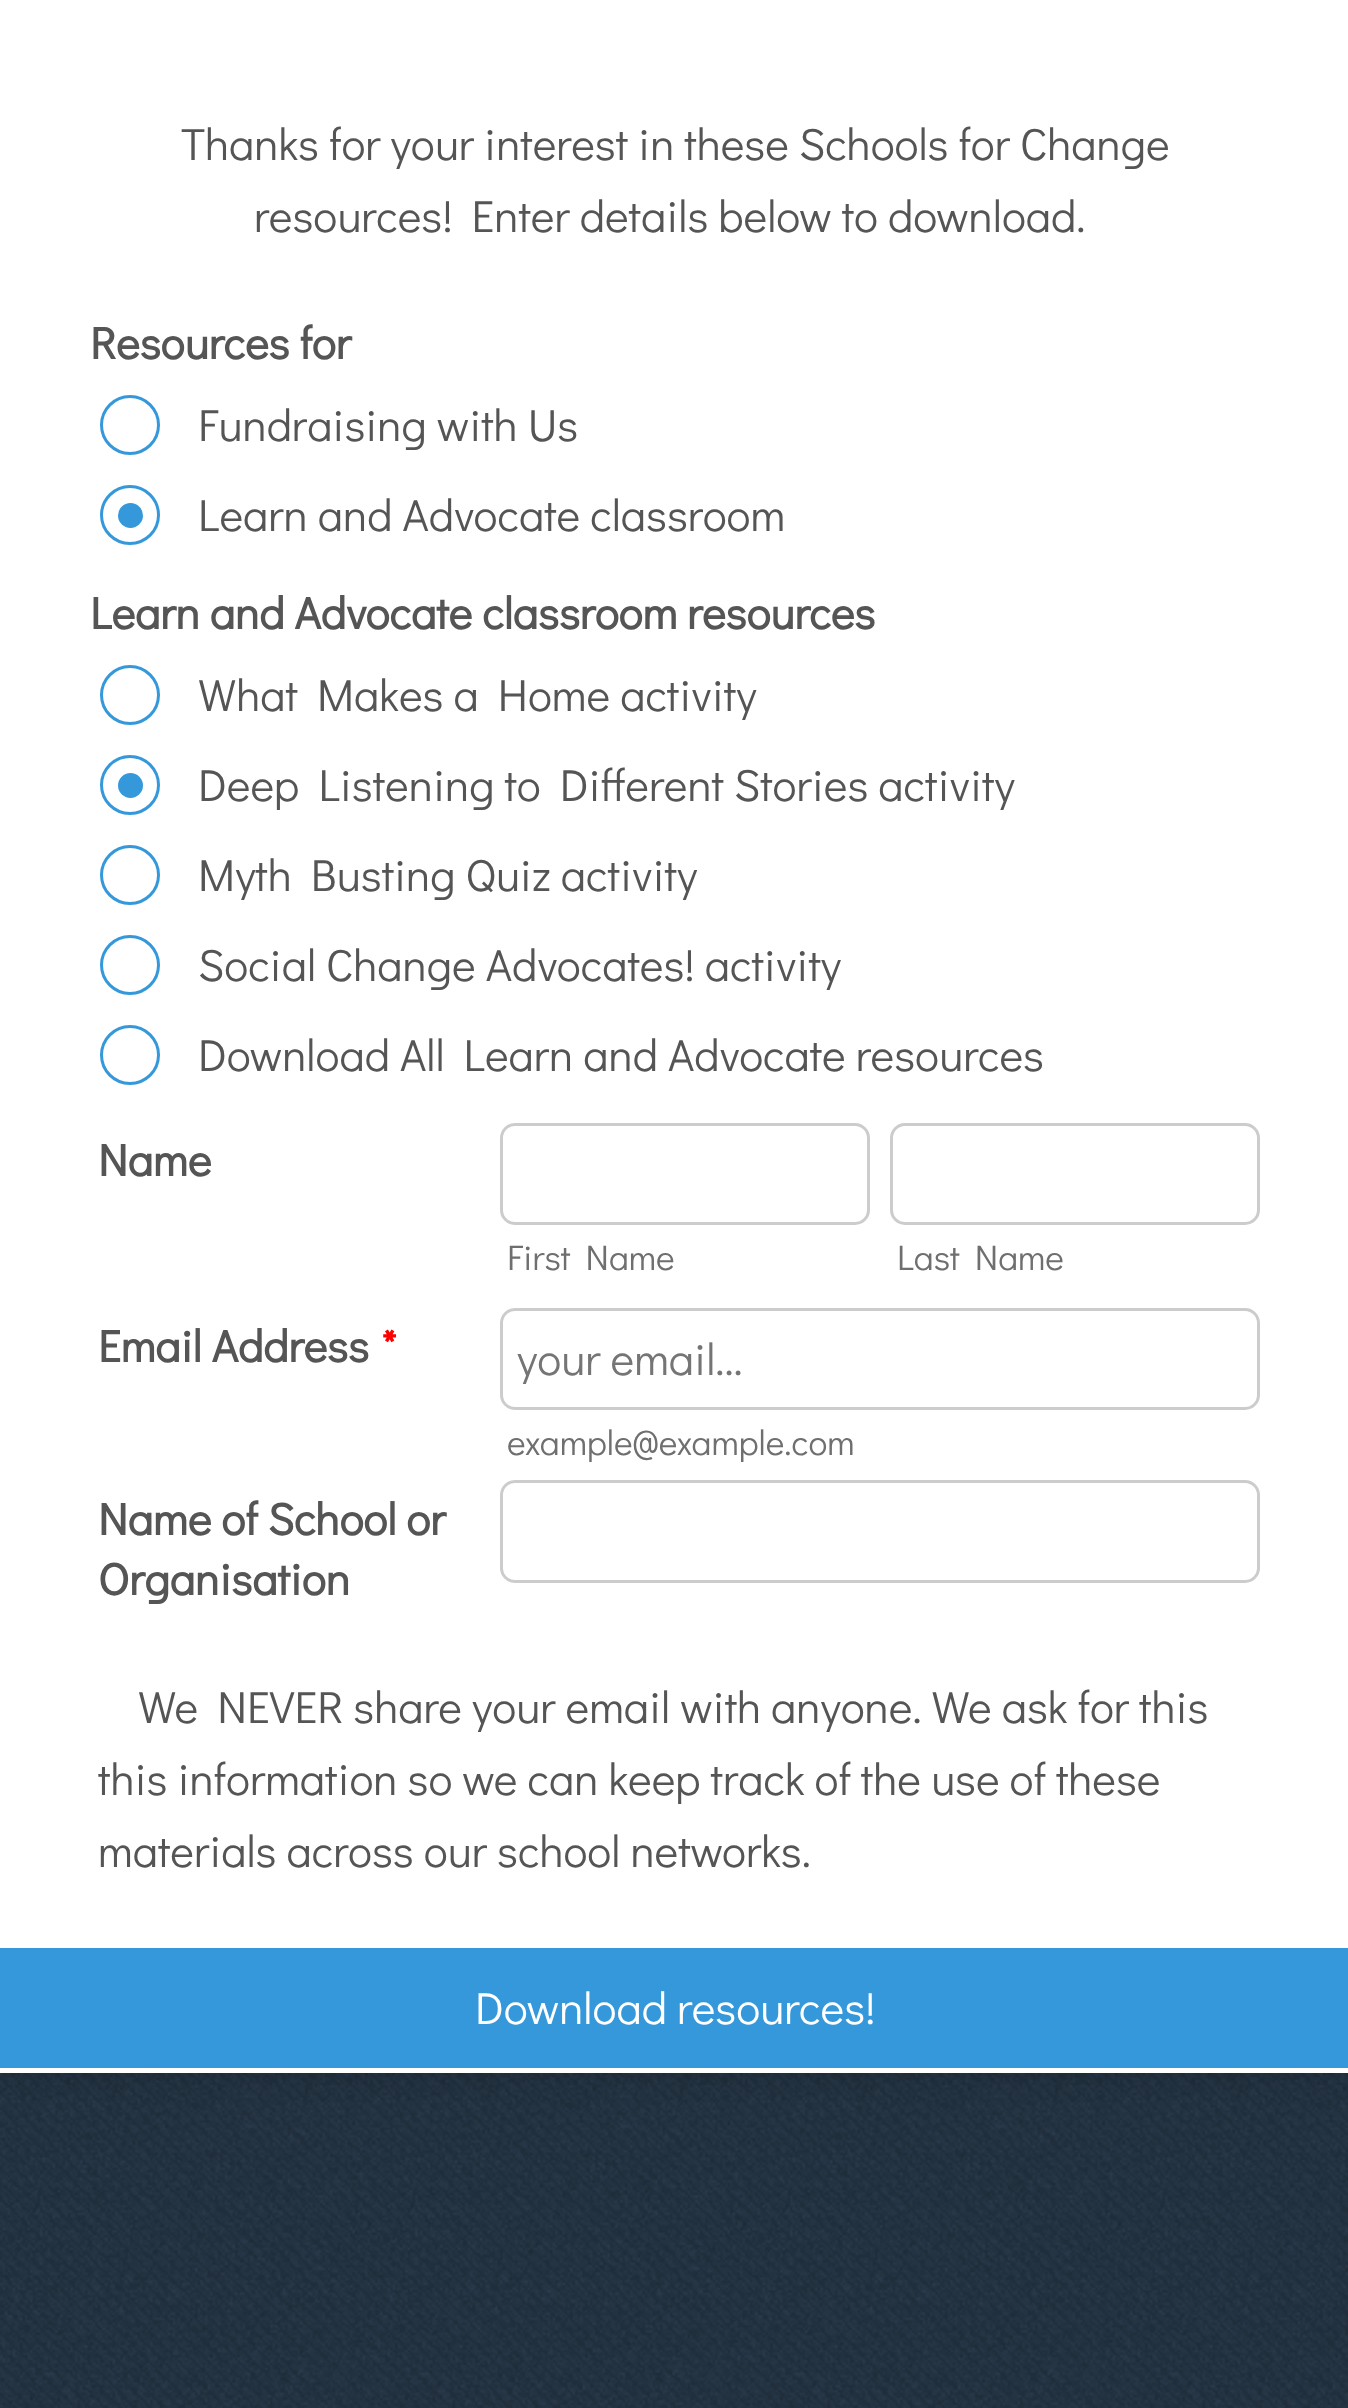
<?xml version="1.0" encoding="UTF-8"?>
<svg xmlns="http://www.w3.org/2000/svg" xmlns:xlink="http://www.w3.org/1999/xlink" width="1348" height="2408">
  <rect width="100%" height="100%" fill="#ffffff" />
  <image x="0" y="2073" width="1348" height="335" xlink:href="image1.png" />
  <rect y="8" width="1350" height="2072" fill="#000000" fill-opacity="0.1" filter="blur(11px)" />
  <rect width="1348" height="2073" fill="#ffffff" />
  <circle cx="130" cy="425" r="28.5" fill="none" stroke="#3498db" stroke-width="3" />
  <circle cx="130" cy="515" r="28.5" fill="none" stroke="#3498db" stroke-width="3" />
  <circle cx="130.5" cy="515.5" r="12.5" fill="#3498db" />
  <circle cx="130" cy="695" r="28.5" fill="none" stroke="#3498db" stroke-width="3" />
  <circle cx="130" cy="785" r="28.5" fill="none" stroke="#3498db" stroke-width="3" />
  <circle cx="130.5" cy="785.5" r="12.5" fill="#3498db" />
  <circle cx="130" cy="875" r="28.5" fill="none" stroke="#3498db" stroke-width="3" />
  <circle cx="130" cy="965" r="28.5" fill="none" stroke="#3498db" stroke-width="3" />
  <circle cx="130" cy="1055" r="28.5" fill="none" stroke="#3498db" stroke-width="3" />
  <rect x="501.5" y="1124.5" width="367" height="99" rx="13.5" fill="none" stroke="#cccccc" stroke-width="3" />
  <rect x="891.5" y="1124.5" width="367" height="99" rx="13.5" fill="none" stroke="#cccccc" stroke-width="3" />
  <rect x="501.5" y="1309.5" width="757" height="99" rx="13.5" fill="none" stroke="#cccccc" stroke-width="3" />
  <rect x="501.5" y="1481.5" width="757" height="100" rx="13.5" fill="none" stroke="#cccccc" stroke-width="3" />
  <rect y="1948" width="1348" height="120" fill="#3498db" />
  <text x="181" y="160" style="font-family: Didact Gothic; font-size: 45px; fill: #555555">Thanks for your interest in these Schools for Change</text>
  <text x="254" y="232" style="font-family: Didact Gothic; font-size: 45px; fill: #555555">resources! Enter details below to download.</text>
  <text x="90" y="359" style="font-family: Didact Gothic; font-size: 45px; font-weight: bold; fill: #555555">Resources for</text>
  <text x="198" y="441" style="font-family: Didact Gothic; font-size: 45px; fill: #555555">Fundraising with Us</text>
  <text x="198" y="531" style="font-family: Didact Gothic; font-size: 45px; fill: #555555">Learn and Advocate classroom</text>
  <text x="90" y="629" style="font-family: Didact Gothic; font-size: 45px; font-weight: bold; fill: #555555">Learn and Advocate classroom resources</text>
  <text x="198" y="711" style="font-family: Didact Gothic; font-size: 45px; fill: #555555">What Makes a Home activity</text>
  <text x="198" y="801" style="font-family: Didact Gothic; font-size: 45px; fill: #555555">Deep Listening to Different Stories activity</text>
  <text x="198" y="891" style="font-family: Didact Gothic; font-size: 45px; fill: #555555">Myth Busting Quiz activity</text>
  <text x="198" y="981" style="font-family: Didact Gothic; font-size: 45px; fill: #555555">Social Change Advocates! activity</text>
  <text x="198" y="1071" style="font-family: Didact Gothic; font-size: 45px; fill: #555555">Download All Learn and Advocate resources</text>
  <text x="98" y="1176" style="font-family: Didact Gothic; font-size: 45px; font-weight: bold; fill: #555555">Name</text>
  <text x="507" y="1270" style="font-family: Didact Gothic; font-size: 35.4px; fill: #6f6f6f">First Name</text>
  <text x="897" y="1270" style="font-family: Didact Gothic; font-size: 35.4px; fill: #6f6f6f">Last Name</text>
  <text x="98" y="1362" style="font-family: Didact Gothic; font-size: 45px; font-weight: bold; fill: #555555">Email Address</text>
  <text x="381" y="1362" style="font-family: Didact Gothic; font-size: 45px; font-weight: bold; fill: #ff0000">*</text>
  <text x="517" y="1375" style="font-family: Didact Gothic; font-size: 45px; fill: #757575">your email...</text>
  <text x="507" y="1455" style="font-family: Didact Gothic; font-size: 35.4px; fill: #6f6f6f">example@example.com</text>
  <text x="98" y="1535" style="font-family: Didact Gothic; font-size: 45px; font-weight: bold; fill: #555555">Name of School or</text>
  <text x="98" y="1595" style="font-family: Didact Gothic; font-size: 45px; font-weight: bold; fill: #555555">Organisation</text>
  <text x="138" y="1723" style="font-family: Didact Gothic; font-size: 45px; fill: #555555">We NEVER share your email with anyone. We ask for this</text>
  <text x="98" y="1795" style="font-family: Didact Gothic; font-size: 45px; fill: #555555">this information so we can keep track of the use of these</text>
  <text x="98" y="1867" style="font-family: Didact Gothic; font-size: 45px; fill: #555555">materials across our school networks.</text>
  <text x="475" y="2024" style="font-family: Didact Gothic; font-size: 45px; fill: #ffffff">Download resources!</text>
</svg>
